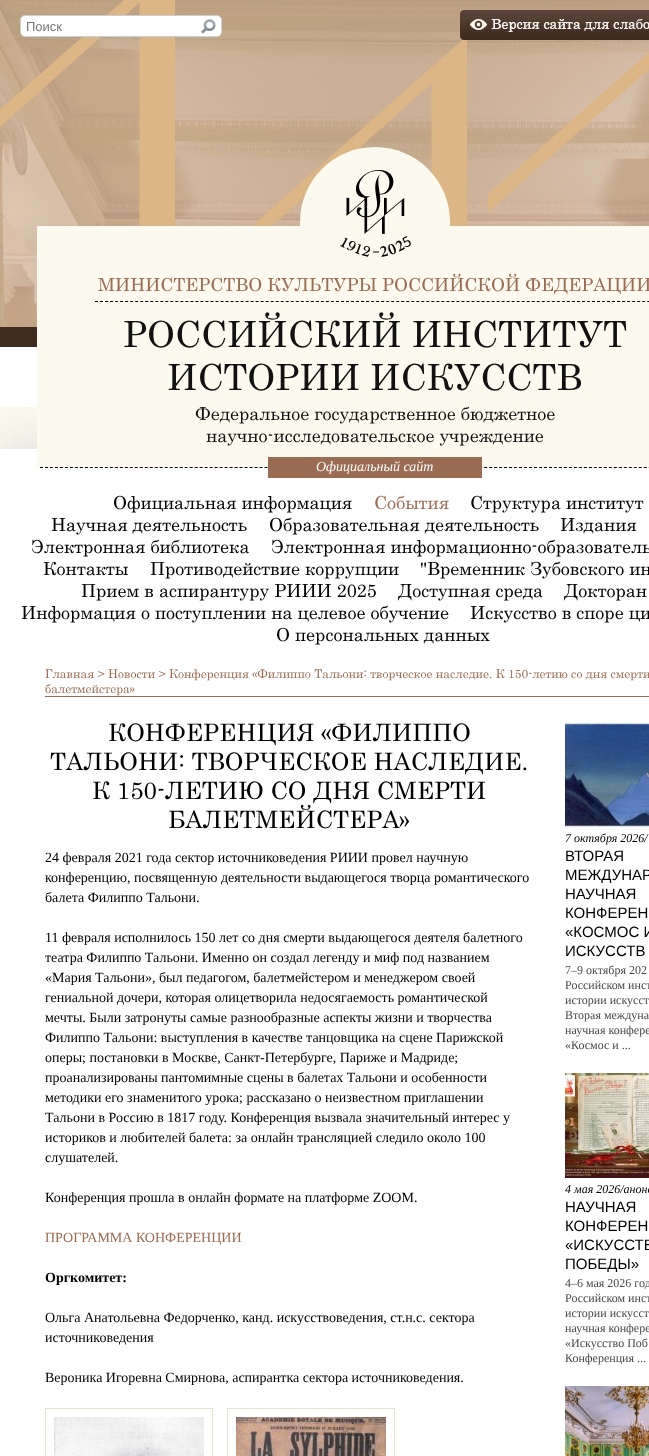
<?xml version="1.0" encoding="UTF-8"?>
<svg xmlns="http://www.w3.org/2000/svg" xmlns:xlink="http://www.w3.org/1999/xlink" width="649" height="1456">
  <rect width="100%" height="100%" fill="#fcf9ee" />
  <image x="0" y="0" width="649" height="327" xlink:href="image1.png" />
  <rect y="327" width="37" height="20" fill="#402b20" />
  <rect y="449" width="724" height="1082" fill="#d6d6d6" filter="blur(25px)" />
  <rect y="347" width="37" height="60" fill="#ffffff" />
  <rect x="20.5" y="15.5" width="201" height="21" rx="4.5" fill="#ffffff" stroke="#cad0d4" />
  <image x="201" y="19" width="15" height="15" xlink:href="image2.png" />
  <image x="460" y="10" width="189" height="30" xlink:href="image3.png" />
  <rect y="449" width="649" height="1007" fill="#ffffff" />
  <rect x="37" y="226" width="612" height="242" fill="#fcf9ee" />
  <path d="M 375 147 c 41.5 0 75 33.5 75 75 v 48 h -150 v -48 c 0 -41.5 33.5 -75 75 -75 z" fill="#fcf9ee" />
  <image x="340" y="170" width="71" height="87" xlink:href="image4.png" />
  <path d="M 95 301.5 h 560" fill="none" stroke="#000000" stroke-dasharray="3 2.02" />
  <path d="M 40 467.5 h 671" fill="none" stroke="#000000" stroke-dasharray="3 1.99" />
  <rect x="268" y="457" width="214" height="21" fill="#9a6c53" />
  <rect x="45" y="696" width="604" height="1" fill="#9a6c53" />
  <rect x="45.5" y="1408.5" width="167" height="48" fill="none" stroke="#e9e1d1" />
  <image x="54" y="1417" width="150" height="39" xlink:href="image5.png" />
  <rect x="227.5" y="1408.5" width="167" height="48" fill="none" stroke="#e9e1d1" />
  <image x="236" y="1417" width="150" height="39" xlink:href="image6.png" />
  <image x="565" y="723" width="84" height="104" xlink:href="image7.png" />
  <image x="565" y="1073" width="84" height="105" xlink:href="image8.png" />
  <image x="565" y="1386" width="84" height="70" xlink:href="image9.png" />
  <text x="26" y="31" style="font-family: Liberation Sans; font-size: 13px; fill: #757575">Поиск</text>
  <text x="98" y="291" style="font-family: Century; font-size: 18px; fill: #9a6c53">МИНИСТЕРСТВО КУЛЬТУРЫ РОССИЙСКОЙ ФЕДЕРАЦИИ</text>
  <text x="123" y="347" style="font-family: Century; font-size: 36px; fill: #111111">РОССИЙСКИЙ ИНСТИТУТ</text>
  <text x="167" y="390" style="font-family: Century; font-size: 36px; fill: #111111">ИСТОРИИ ИСКУССТВ</text>
  <text x="195" y="420" style="font-family: Century; font-size: 18px; fill: #111111">Федеральное государственное бюджетное</text>
  <text x="206" y="442" style="font-family: Century; font-size: 18px; fill: #111111">научно-исследовательское учреждение</text>
  <text x="316" y="471" style="font-family: Liberation Serif; font-size: 14px; font-style: italic; fill: #ffffff">Официальный сайт</text>
  <text x="113" y="509" style="font-family: Century; font-size: 18px; fill: #000000">Официальная информация</text>
  <text x="374" y="509" style="font-family: Century; font-size: 18px; fill: #9a6c53">События</text>
  <text x="470" y="509" style="font-family: Century; font-size: 18px; fill: #000000">Структура институт</text>
  <text x="51" y="531" style="font-family: Century; font-size: 18px; fill: #000000">Научная деятельность</text>
  <text x="269" y="531" style="font-family: Century; font-size: 18px; fill: #000000">Образовательная деятельность</text>
  <text x="560" y="531" style="font-family: Century; font-size: 18px; fill: #000000">Издания</text>
  <text x="31" y="553" style="font-family: Century; font-size: 18px; fill: #000000">Электронная библиотека</text>
  <text x="271" y="553" style="font-family: Century; font-size: 18px; fill: #000000">Электронная информационно-образователь</text>
  <text x="43" y="575" style="font-family: Century; font-size: 18px; fill: #000000">Контакты</text>
  <text x="150" y="575" style="font-family: Century; font-size: 18px; fill: #000000">Противодействие коррупции</text>
  <text x="420" y="575" style="font-family: Century; font-size: 18px; fill: #000000">"Временник Зубовского ин</text>
  <text x="81" y="597" style="font-family: Century; font-size: 18px; fill: #000000">Прием в аспирантуру РИИИ 2025</text>
  <text x="398" y="597" style="font-family: Century; font-size: 18px; fill: #000000">Доступная среда</text>
  <text x="564" y="597" style="font-family: Century; font-size: 18px; fill: #000000">Докторан</text>
  <text x="21" y="619" style="font-family: Century; font-size: 18px; fill: #000000">Информация о поступлении на целевое обучение</text>
  <text x="470" y="619" style="font-family: Century; font-size: 18px; fill: #000000">Искусство в споре ци</text>
  <text x="276" y="641" style="font-family: Century; font-size: 18px; fill: #000000">О персональных данных</text>
  <text x="45" y="678" style="font-family: Century; font-size: 12px; fill: #9a6c53">Главная &gt; Новости &gt; Конференция «Филиппо Тальони: творческое наследие. К 150-летию со дня смерти</text>
  <text x="45" y="693" style="font-family: Century; font-size: 12px; fill: #9a6c53">балетмейстера»</text>
  <text x="108" y="741" style="font-family: Century; font-size: 24px; fill: #000000">КОНФЕРЕНЦИЯ «ФИЛИППО</text>
  <text x="50" y="770" style="font-family: Century; font-size: 24px; fill: #000000">ТАЛЬОНИ: ТВОРЧЕСКОЕ НАСЛЕДИЕ.</text>
  <text x="92" y="799" style="font-family: Century; font-size: 24px; fill: #000000">К 150-ЛЕТИЮ СО ДНЯ СМЕРТИ</text>
  <text x="168" y="828" style="font-family: Century; font-size: 24px; fill: #000000">БАЛЕТМЕЙСТЕРА»</text>
  <text x="45" y="862" style="font-family: Liberation Serif; font-size: 14px; fill: #000000">24 февраля 2021 года сектор источниковедения РИИИ провел научную</text>
  <text x="45" y="882" style="font-family: Liberation Serif; font-size: 14px; fill: #000000">конференцию, посвященную деятельности выдающегося творца романтического</text>
  <text x="45" y="902" style="font-family: Liberation Serif; font-size: 14px; fill: #000000">балета Филиппо Тальони.</text>
  <text x="45" y="942" style="font-family: Liberation Serif; font-size: 14px; fill: #000000">11 февраля исполнилось 150 лет со дня смерти выдающегося деятеля балетного</text>
  <text x="45" y="962" style="font-family: Liberation Serif; font-size: 14px; fill: #000000">театра Филиппо Тальони. Именно он создал легенду и миф под названием</text>
  <text x="45" y="982" style="font-family: Liberation Serif; font-size: 14px; fill: #000000">«Мария Тальони», был педагогом, балетмейстером и менеджером своей</text>
  <text x="45" y="1002" style="font-family: Liberation Serif; font-size: 14px; fill: #000000">гениальной дочери, которая олицетворила недосягаемость романтической</text>
  <text x="45" y="1022" style="font-family: Liberation Serif; font-size: 14px; fill: #000000">мечты. Были затронуты самые разнообразные аспекты жизни и творчества</text>
  <text x="45" y="1042" style="font-family: Liberation Serif; font-size: 14px; fill: #000000">Филиппо Тальони: выступления в качестве танцовщика на сцене Парижской</text>
  <text x="45" y="1062" style="font-family: Liberation Serif; font-size: 14px; fill: #000000">оперы; постановки в Москве, Санкт-Петербурге, Париже и Мадриде;</text>
  <text x="45" y="1082" style="font-family: Liberation Serif; font-size: 14px; fill: #000000">проанализированы пантомимные сцены в балетах Тальони и особенности</text>
  <text x="45" y="1102" style="font-family: Liberation Serif; font-size: 14px; fill: #000000">методики его знаменитого урока; рассказано о неизвестном приглашении</text>
  <text x="45" y="1122" style="font-family: Liberation Serif; font-size: 14px; fill: #000000">Тальони в Россию в 1817 году. Конференция вызвала значительный интерес у</text>
  <text x="45" y="1142" style="font-family: Liberation Serif; font-size: 14px; fill: #000000">историков и любителей балета: за онлайн трансляцией следило около 100</text>
  <text x="45" y="1162" style="font-family: Liberation Serif; font-size: 14px; fill: #000000">слушателей.</text>
  <text x="45" y="1202" style="font-family: Liberation Serif; font-size: 14px; fill: #000000">Конференция прошла в онлайн формате на платформе ZOOM.</text>
  <text x="45" y="1242" style="font-family: Liberation Serif; font-size: 14px; fill: #9a6c53">ПРОГРАММА КОНФЕРЕНЦИИ</text>
  <text x="45" y="1282" style="font-family: Liberation Serif; font-size: 14px; font-weight: bold; fill: #000000">Оргкомитет:</text>
  <text x="45" y="1322" style="font-family: Liberation Serif; font-size: 14px; fill: #000000">Ольга Анатольевна Федорченко, канд. искусствоведения, ст.н.с. сектора</text>
  <text x="45" y="1342" style="font-family: Liberation Serif; font-size: 14px; fill: #000000">источниковедения</text>
  <text x="45" y="1382" style="font-family: Liberation Serif; font-size: 14px; fill: #000000">Вероника Игоревна Смирнова, аспирантка сектора источниковедения.</text>
  <text x="565" y="842" style="font-family: Liberation Serif; font-size: 12px; font-style: italic; fill: #000000">7 октября 2026/</text>
  <text x="565" y="861" style="font-family: Liberation Sans; font-size: 15px; fill: #000000">ВТОРАЯ</text>
  <text x="565" y="880" style="font-family: Liberation Sans; font-size: 15px; fill: #000000">МЕЖДУНАР</text>
  <text x="565" y="899" style="font-family: Liberation Sans; font-size: 15px; fill: #000000">НАУЧНАЯ</text>
  <text x="565" y="918" style="font-family: Liberation Sans; font-size: 15px; fill: #000000">КОНФЕРЕН</text>
  <text x="565" y="937" style="font-family: Liberation Sans; font-size: 15px; fill: #000000">«КОСМОС И</text>
  <text x="565" y="956" style="font-family: Liberation Sans; font-size: 15px; fill: #000000">ИСКУССТВ</text>
  <text x="565" y="974" style="font-family: Liberation Serif; font-size: 12px; fill: #494949">7–9 октября 202</text>
  <text x="565" y="989" style="font-family: Liberation Serif; font-size: 12px; fill: #494949">Российском инст</text>
  <text x="565" y="1004" style="font-family: Liberation Serif; font-size: 12px; fill: #494949">истории искусст</text>
  <text x="565" y="1019" style="font-family: Liberation Serif; font-size: 12px; fill: #494949">Вторая междуна</text>
  <text x="565" y="1034" style="font-family: Liberation Serif; font-size: 12px; fill: #494949">научная конфере</text>
  <text x="565" y="1049" style="font-family: Liberation Serif; font-size: 12px; fill: #494949">«Космос и ...</text>
  <text x="565" y="1193" style="font-family: Liberation Serif; font-size: 12px; font-style: italic; fill: #000000">4 мая 2026/анонс</text>
  <text x="565" y="1212" style="font-family: Liberation Sans; font-size: 15px; fill: #000000">НАУЧНАЯ</text>
  <text x="565" y="1231" style="font-family: Liberation Sans; font-size: 15px; fill: #000000">КОНФЕРЕН</text>
  <text x="565" y="1250" style="font-family: Liberation Sans; font-size: 15px; fill: #000000">«ИСКУССТВ</text>
  <text x="565" y="1269" style="font-family: Liberation Sans; font-size: 15px; fill: #000000">ПОБЕДЫ»</text>
  <text x="565" y="1287" style="font-family: Liberation Serif; font-size: 12px; fill: #494949">4–6 мая 2026 год</text>
  <text x="565" y="1302" style="font-family: Liberation Serif; font-size: 12px; fill: #494949">Российском инст</text>
  <text x="565" y="1317" style="font-family: Liberation Serif; font-size: 12px; fill: #494949">истории искусст</text>
  <text x="565" y="1332" style="font-family: Liberation Serif; font-size: 12px; fill: #494949">научная конфере</text>
  <text x="565" y="1347" style="font-family: Liberation Serif; font-size: 12px; fill: #494949">«Искусство Поб</text>
  <text x="565" y="1362" style="font-family: Liberation Serif; font-size: 12px; fill: #494949">Конференция ...</text>
</svg>
